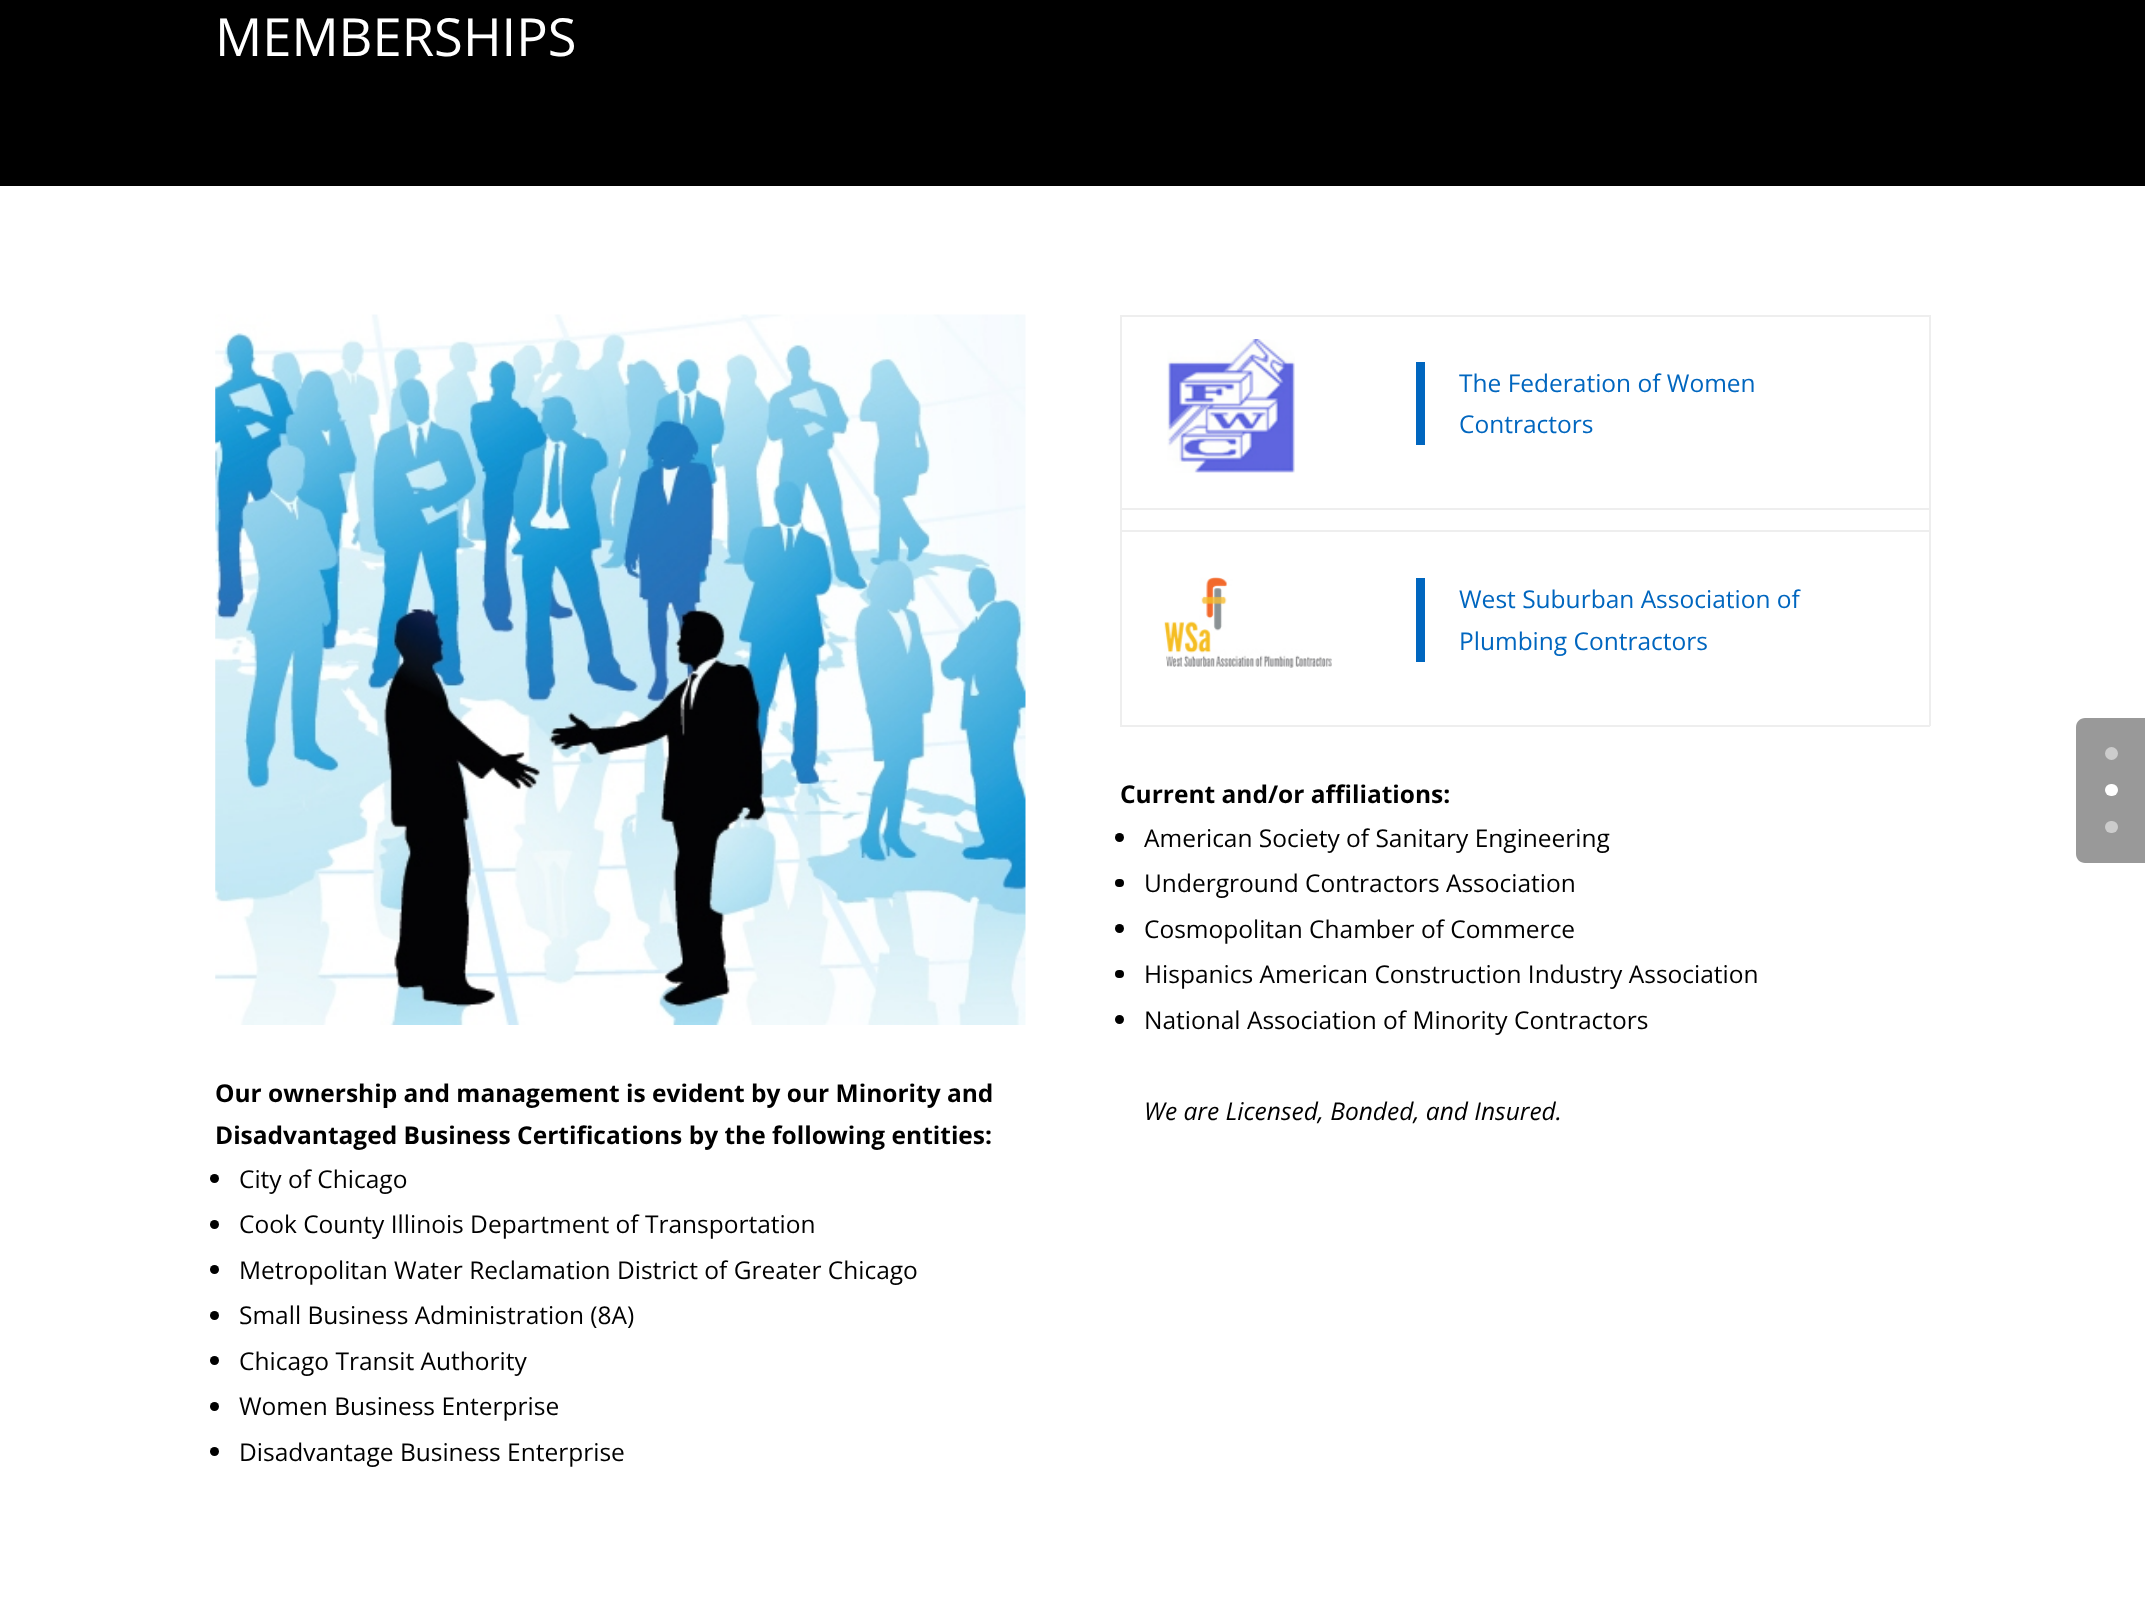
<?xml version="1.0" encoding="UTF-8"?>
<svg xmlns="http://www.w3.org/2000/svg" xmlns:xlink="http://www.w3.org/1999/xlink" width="2145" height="1610">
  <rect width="100%" height="100%" fill="#000000" />
  <rect y="186" width="2145" height="1424" fill="#ffffff" />
  <rect x="1120" y="315" width="810" height="2" fill="#eeeeee" />
  <rect x="1929" y="315" width="2" height="411" fill="#eeeeee" />
  <rect x="1120" y="725" width="810" height="2" fill="#eeeeee" />
  <rect x="1120" y="315" width="2" height="411" fill="#eeeeee" />
  <image x="1167" y="339" width="128" height="134" xlink:href="image1.png" />
  <rect x="1416" y="362" width="9" height="83" fill="#0066bf" />
  <rect x="1120" y="508" width="810" height="2" fill="#eeeeee" />
  <image x="1163" y="577" width="169" height="91" xlink:href="image2.png" />
  <rect x="1120" y="530" width="810" height="2" fill="#eeeeee" />
  <rect x="1416" y="578" width="9" height="84" fill="#0066bf" />
  <circle cx="1119.5" cy="837.5" r="4.5" fill="#000000" />
  <rect x="1115" y="879" width="9" height="8" rx="4" fill="#000000" />
  <circle cx="1119.5" cy="928.5" r="4.5" fill="#000000" />
  <rect x="1115" y="970" width="9" height="8" rx="4" fill="#000000" />
  <circle cx="1119.5" cy="1019.5" r="4.5" fill="#000000" />
  <image x="215" y="314" width="811" height="711" xlink:href="image3.png" />
  <circle cx="214.5" cy="1178.5" r="4.5" fill="#000000" />
  <circle cx="214.5" cy="1224.5" r="4.5" fill="#000000" />
  <circle cx="214.5" cy="1269.5" r="4.5" fill="#000000" />
  <circle cx="214.5" cy="1315.5" r="4.5" fill="#000000" />
  <circle cx="214.5" cy="1360.5" r="4.5" fill="#000000" />
  <circle cx="214.5" cy="1406.5" r="4.5" fill="#000000" />
  <circle cx="214.5" cy="1451.5" r="4.5" fill="#000000" />
  <path d="M 2085 718 h 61 v 145 h -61 c -5 0 -9 -4 -9 -9 v -127 c 0 -5 4 -9 9 -9 z" fill="#999999" />
  <circle cx="2111.5" cy="753.5" r="6.5" fill="#cccccc" />
  <rect x="2105" y="784" width="13" height="12" rx="6" fill="#ffffff" />
  <rect x="2105" y="821" width="13" height="12" rx="6" fill="#cccccc" />
  <text x="215" y="56" style="font-family: Open Sans; font-size: 52.5px; fill: #ffffff">MEMBERSHIPS</text>
  <text x="1459" y="392" style="font-family: Open Sans; font-size: 24.5px; fill: #0066bf">The Federation of Women</text>
  <text x="1459" y="433" style="font-family: Open Sans; font-size: 24.5px; fill: #0066bf">Contractors</text>
  <text x="1459" y="608" style="font-family: Open Sans; font-size: 24.5px; fill: #0066bf">West Suburban Association of</text>
  <text x="1459" y="650" style="font-family: Open Sans; font-size: 24.5px; fill: #0066bf">Plumbing Contractors</text>
  <text x="1120" y="803" style="font-family: Open Sans; font-size: 24.5px; font-weight: bold; fill: #000000">Current and/or affiliations:</text>
  <text x="1144" y="847" style="font-family: Open Sans; font-size: 24.5px; fill: #000000">American Society of Sanitary Engineering</text>
  <text x="1144" y="892" style="font-family: Open Sans; font-size: 24.5px; fill: #000000">Underground Contractors Association</text>
  <text x="1144" y="938" style="font-family: Open Sans; font-size: 24.5px; fill: #000000">Cosmopolitan Chamber of Commerce</text>
  <text x="1144" y="983" style="font-family: Open Sans; font-size: 24.5px; fill: #000000">Hispanics American Construction Industry Association</text>
  <text x="1144" y="1029" style="font-family: Open Sans; font-size: 24.5px; fill: #000000">National Association of Minority Contractors</text>
  <text x="1144" y="1120" style="font-family: Open Sans; font-size: 24.5px; font-style: italic; fill: #000000">We are Licensed, Bonded, and Insured.</text>
  <text x="215" y="1102" style="font-family: Open Sans; font-size: 24.5px; font-weight: bold; fill: #000000">Our ownership and management is evident by our Minority and</text>
  <text x="215" y="1144" style="font-family: Open Sans; font-size: 24.5px; font-weight: bold; fill: #000000">Disadvantaged Business Certifications by the following entities:</text>
  <text x="239" y="1188" style="font-family: Open Sans; font-size: 24.5px; fill: #000000">City of Chicago</text>
  <text x="239" y="1233" style="font-family: Open Sans; font-size: 24.5px; fill: #000000">Cook County Illinois Department of Transportation</text>
  <text x="239" y="1279" style="font-family: Open Sans; font-size: 24.5px; fill: #000000">Metropolitan Water Reclamation District of Greater Chicago</text>
  <text x="239" y="1324" style="font-family: Open Sans; font-size: 24.5px; fill: #000000">Small Business Administration (8A)</text>
  <text x="239" y="1370" style="font-family: Open Sans; font-size: 24.5px; fill: #000000">Chicago Transit Authority</text>
  <text x="239" y="1415" style="font-family: Open Sans; font-size: 24.5px; fill: #000000">Women Business Enterprise</text>
  <text x="239" y="1461" style="font-family: Open Sans; font-size: 24.5px; fill: #000000">Disadvantage Business Enterprise</text>
</svg>
